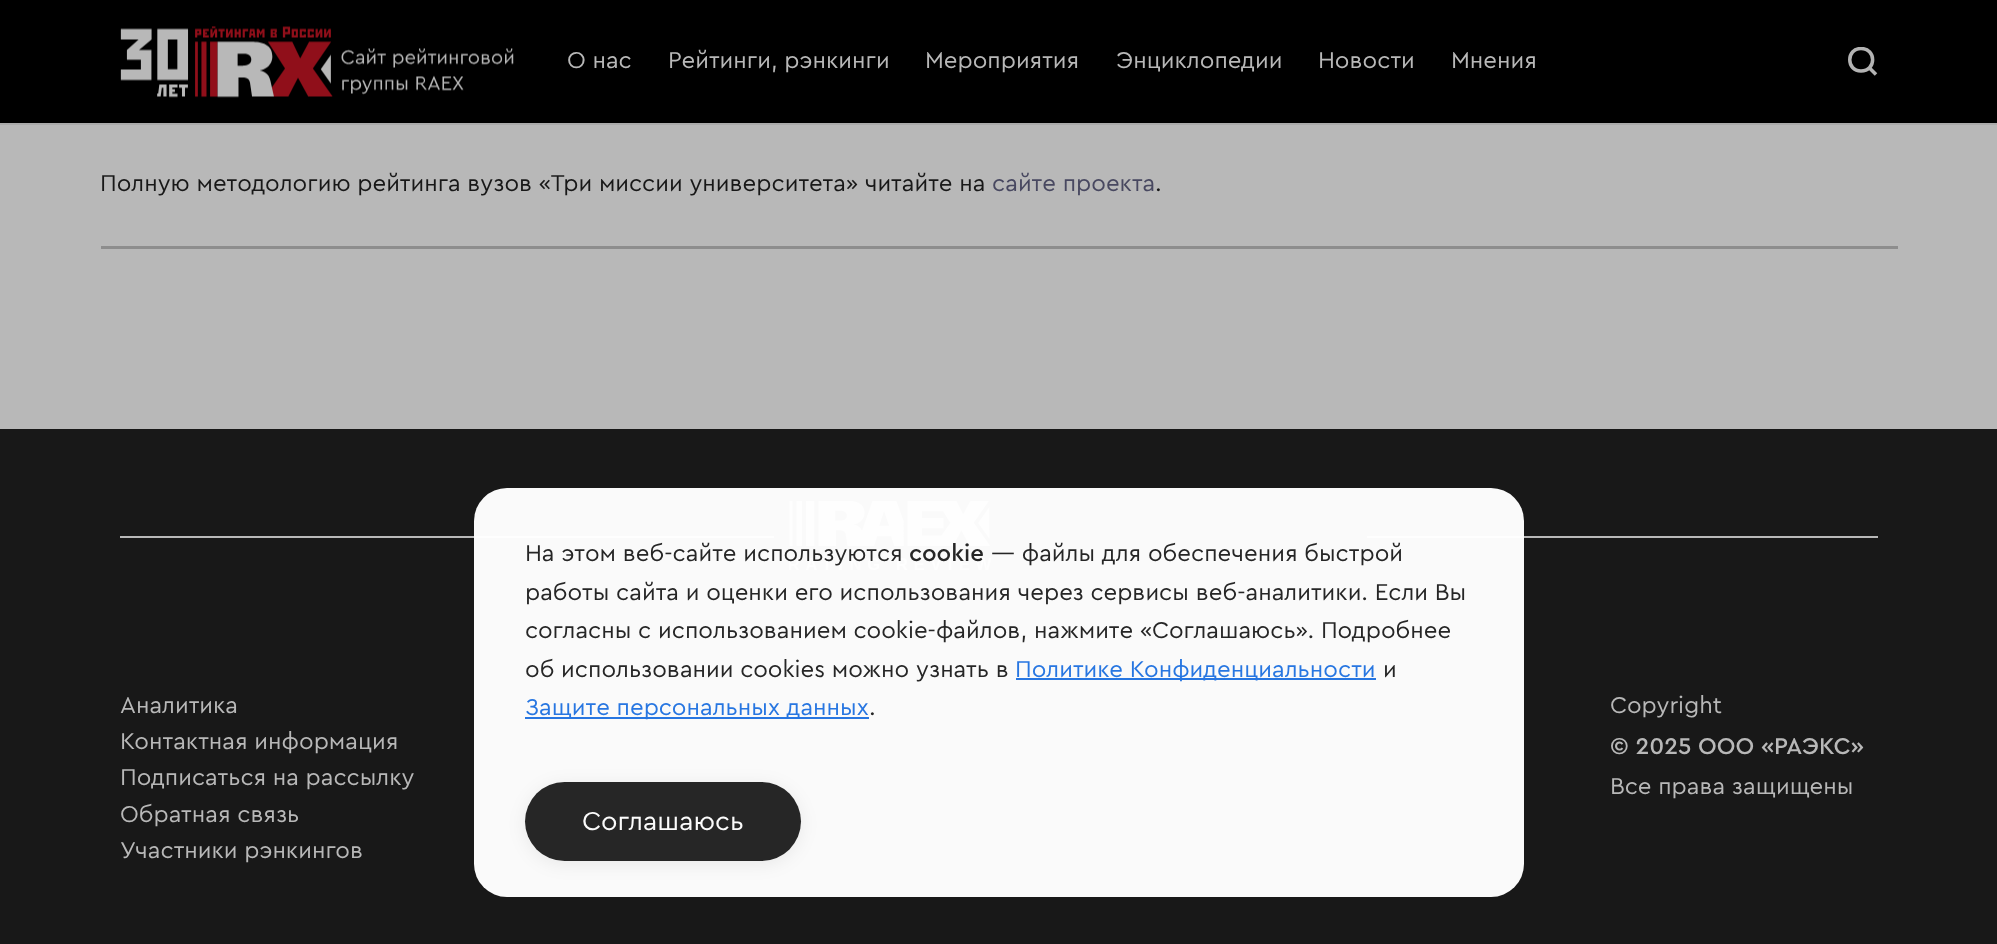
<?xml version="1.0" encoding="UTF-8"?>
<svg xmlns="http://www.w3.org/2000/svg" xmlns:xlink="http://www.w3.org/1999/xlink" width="1997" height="944">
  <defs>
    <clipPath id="clip1"><rect x="1848" y="47" width="30" height="30" /></clipPath>
    <clipPath id="clip2"><path d="M 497 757 h 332 v 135 h -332 z m 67.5 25 h 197 c 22 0 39.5 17.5 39.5 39.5 c 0 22 -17.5 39.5 -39.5 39.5 h -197 c -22 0 -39.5 -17.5 -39.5 -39.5 c 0 -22 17.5 -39.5 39.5 -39.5 z" clip-rule="evenodd" /></clipPath>
  </defs>
  <rect width="100%" height="100%" fill="#b8b8b8" />
  <rect width="1997" height="123" fill="#000000" />
  <rect y="123" width="1997" height="2" fill="#aaaaaa" />
  <image x="120" y="26" width="394" height="72" xlink:href="image1.png" />
  <g clip-path="url(#clip1)">
    <path d="M 1861 71 c 15.5 0 15.5 -22.5 0 -22.5 c -15 0 -15 22.5 0 22.5 z" fill="none" stroke="#b3b3b3" stroke-width="3.5" />
  </g>
  <path d="M 1869 67.5 l 7 7" fill="none" stroke="#b3b3b3" stroke-width="3.5" />
  <rect x="101" y="246" width="1797" height="3" fill="#8d8d8d" />
  <rect y="429" width="1997" height="515" fill="#181818" />
  <rect x="120" y="536" width="654" height="2" fill="#b8b8b8" />
  <image x="789" y="501" width="203" height="69" xlink:href="image2.png" />
  <rect x="1367" y="536" width="511" height="2" fill="#b8b8b8" />
  <rect x="474" y="488" width="1050" height="409" rx="33" fill="#ffffff" fill-opacity="0.98" />
  <rect x="1016" y="678" width="360" height="2" fill="#2776e1" />
  <rect x="525" y="717" width="344" height="2" fill="#2776e1" />
  <g clip-path="url(#clip2)">
    <rect x="525" y="785" width="276" height="79" rx="39.5" fill="#000000" fill-opacity="0.07" filter="blur(9px)" />
  </g>
  <rect x="525" y="782" width="276" height="79" rx="39.5" fill="#222222" fill-opacity="0.98" />
  <text x="567" y="68" style="font-family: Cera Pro; font-size: 24px; fill: #b8b8b8">О нас</text>
  <text x="668" y="68" style="font-family: Cera Pro; font-size: 24px; fill: #b8b8b8">Рейтинги, рэнкинги</text>
  <text x="925" y="68" style="font-family: Cera Pro; font-size: 24px; fill: #b8b8b8">Мероприятия</text>
  <text x="1116" y="68" style="font-family: Cera Pro; font-size: 24px; fill: #b8b8b8">Энциклопедии</text>
  <text x="1318" y="68" style="font-family: Cera Pro; font-size: 24px; fill: #b8b8b8">Новости</text>
  <text x="1451" y="68" style="font-family: Cera Pro; font-size: 24px; fill: #b8b8b8">Мнения</text>
  <text x="100" y="191" style="font-family: Cera Pro; font-size: 24px; fill: #181818">Полную методологию рейтинга вузов «Три миссии университета» читайте на</text>
  <text x="992" y="191" style="font-family: Cera Pro; font-size: 24px; fill: #484860">сайте проекта</text>
  <text x="1155" y="191" style="font-family: Cera Pro; font-size: 24px; fill: #181818">.</text>
  <text x="525" y="561" style="font-family: Cera Pro; font-size: 24px; fill: #262626">На этом веб-сайте используются</text>
  <text x="909" y="561" style="font-family: Cera Pro; font-size: 24px; font-weight: 500; fill: #262626">cookie</text>
  <text x="991" y="561" style="font-family: Cera Pro; font-size: 24px; fill: #262626">— файлы для обеспечения быстрой</text>
  <text x="525" y="600" style="font-family: Cera Pro; font-size: 24px; fill: #262626">работы сайта и оценки его использования через сервисы веб-аналитики. Если Вы</text>
  <text x="525" y="638" style="font-family: Cera Pro; font-size: 24px; fill: #262626">согласны с использованием cookie-файлов, нажмите «Соглашаюсь». Подробнее</text>
  <text x="525" y="677" style="font-family: Cera Pro; font-size: 24px; fill: #262626">об использовании cookies можно узнать в</text>
  <text x="1015" y="677" style="font-family: Cera Pro; font-size: 24px; fill: #2776e1">Политике Конфиденциальности</text>
  <text x="1383" y="677" style="font-family: Cera Pro; font-size: 24px; fill: #262626">и</text>
  <text x="525" y="715" style="font-family: Cera Pro; font-size: 24px; fill: #2776e1">Защите персональных данных</text>
  <text x="869" y="715" style="font-family: Cera Pro; font-size: 24px; fill: #262626">.</text>
  <text x="582" y="830" style="font-family: Cera Pro; font-size: 27px; fill: #fbfbfb">Соглашаюсь</text>
  <text x="120" y="713" style="font-family: Cera Pro; font-size: 24px; fill: #b8b8b8">Аналитика</text>
  <text x="120" y="749" style="font-family: Cera Pro; font-size: 24px; fill: #b8b8b8">Контактная информация</text>
  <text x="120" y="785" style="font-family: Cera Pro; font-size: 24px; fill: #b8b8b8">Подписаться на рассылку</text>
  <text x="120" y="822" style="font-family: Cera Pro; font-size: 24px; fill: #b8b8b8">Обратная связь</text>
  <text x="120" y="858" style="font-family: Cera Pro; font-size: 24px; fill: #b8b8b8">Участники рэнкингов</text>
  <text x="1610" y="713" style="font-family: Cera Pro; font-size: 24px; fill: #b8b8b8">Copyright</text>
  <text x="1610" y="754" style="font-family: Cera Pro; font-size: 24px; font-weight: 500; fill: #b8b8b8">© 2025 ООО «РАЭКС»</text>
  <text x="1610" y="794" style="font-family: Cera Pro; font-size: 24px; fill: #b8b8b8">Все права защищены</text>
</svg>
